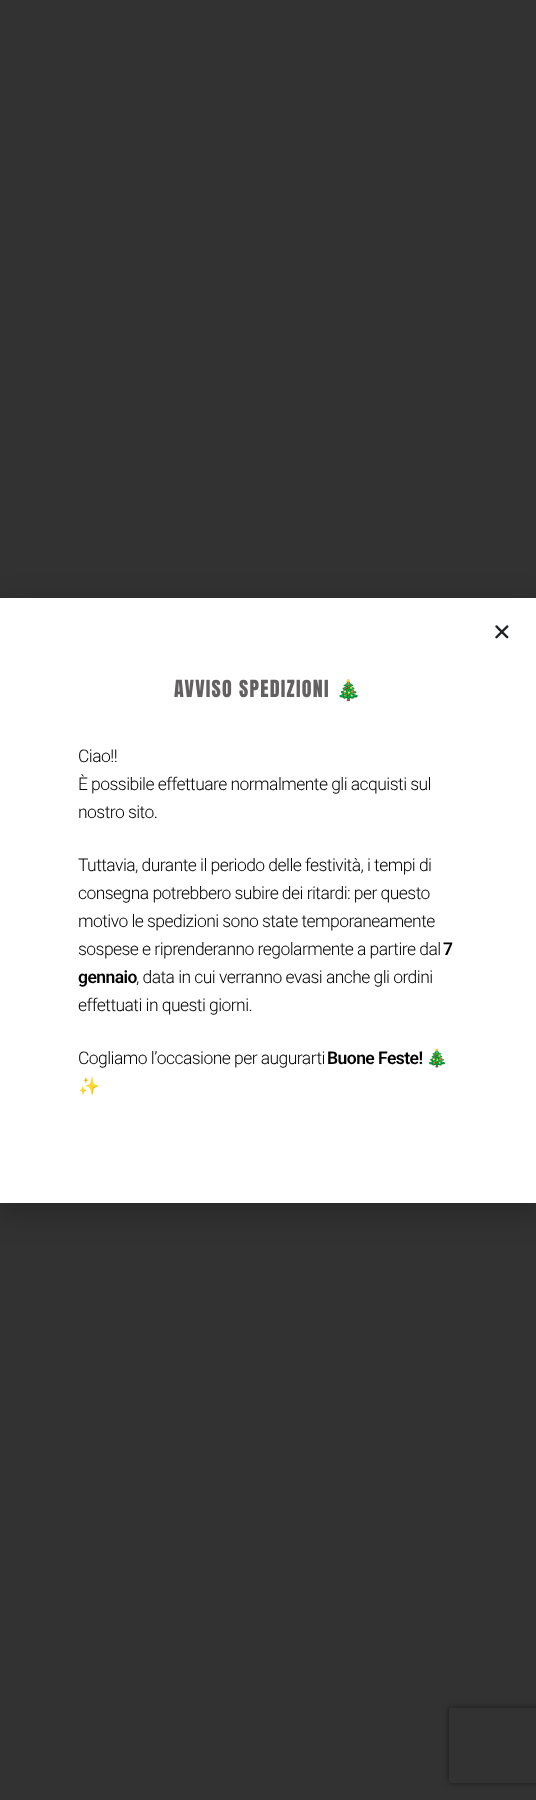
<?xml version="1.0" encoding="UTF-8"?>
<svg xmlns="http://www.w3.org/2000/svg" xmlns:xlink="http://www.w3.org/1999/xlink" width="536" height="1800">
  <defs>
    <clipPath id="clip1"><path d="M 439 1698 h 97 v 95 h -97 z m 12.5 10 h 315 c 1.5 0 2.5 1 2.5 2.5 v 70 c 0 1.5 -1 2.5 -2.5 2.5 h -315 c -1.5 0 -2.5 -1 -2.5 -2.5 v -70 c 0 -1.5 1 -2.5 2.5 -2.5 z" clip-rule="evenodd" /></clipPath>
  </defs>
  <rect width="100%" height="100%" fill="#323232" />
  <rect x="-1" y="604" width="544" height="612" fill="#000000" fill-opacity="0.2" filter="blur(14.5px)" />
  <rect y="598" width="536" height="605" fill="#ffffff" />
  <image x="495" y="625" width="14" height="14" xlink:href="image1.png" />
  <g clip-path="url(#clip1)">
    <rect x="449" y="1708" width="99" height="75" rx="2.5" fill="#1a1a1a" filter="blur(3px)" />
  </g>
  <text x="174" y="697" style="font-family: Anton; font-size: 20px; letter-spacing: 1.25px; fill: #626060">AVVISO SPEDIZIONI</text>
  <text x="336" y="697" style="font-family: Noto Color Emoji; font-size: 20px; letter-spacing: 1.25px; fill: #626060">🎄</text>
  <text x="78" y="762" style="font-family: Roboto; font-size: 17.5px; font-weight: 300; letter-spacing: -0.55px; fill: #000000">Ciao!!</text>
  <text x="78" y="790" style="font-family: Roboto; font-size: 17.5px; font-weight: 300; letter-spacing: -0.55px; fill: #000000">È possibile effettuare normalmente gli acquisti sul</text>
  <text x="78" y="818" style="font-family: Roboto; font-size: 17.5px; font-weight: 300; letter-spacing: -0.55px; fill: #000000">nostro sito.</text>
  <text x="78" y="871" style="font-family: Roboto; font-size: 17.5px; font-weight: 300; letter-spacing: -0.55px; fill: #000000">Tuttavia, durante il periodo delle festività, i tempi di</text>
  <text x="78" y="899" style="font-family: Roboto; font-size: 17.5px; font-weight: 300; letter-spacing: -0.55px; fill: #000000">consegna potrebbero subire dei ritardi: per questo</text>
  <text x="78" y="927" style="font-family: Roboto; font-size: 17.5px; font-weight: 300; letter-spacing: -0.55px; fill: #000000">motivo le spedizioni sono state temporaneamente</text>
  <text x="78" y="955" style="font-family: Roboto; font-size: 17.5px; font-weight: 300; letter-spacing: -0.55px; fill: #000000">sospese e riprenderanno regolarmente a partire dal</text>
  <text x="443" y="955" style="font-family: Roboto; font-size: 17.5px; font-weight: 600; letter-spacing: -0.55px; fill: #000000">7</text>
  <text x="78" y="983" style="font-family: Roboto; font-size: 17.5px; font-weight: 600; letter-spacing: -0.55px; fill: #000000">gennaio</text>
  <text x="136" y="983" style="font-family: Roboto; font-size: 17.5px; font-weight: 300; letter-spacing: -0.55px; fill: #000000">, data in cui verranno evasi anche gli ordini</text>
  <text x="78" y="1011" style="font-family: Roboto; font-size: 17.5px; font-weight: 300; letter-spacing: -0.55px; fill: #000000">effettuati in questi giorni.</text>
  <text x="78" y="1064" style="font-family: Roboto; font-size: 17.5px; font-weight: 300; letter-spacing: -0.55px; fill: #000000">Cogliamo l’occasione per augurarti</text>
  <text x="327" y="1064" style="font-family: Roboto; font-size: 17.5px; font-weight: 600; letter-spacing: -0.55px; fill: #000000">Buone Feste!</text>
  <text x="426" y="1064" style="font-family: Noto Color Emoji; font-size: 17.5px; letter-spacing: -0.55px; fill: #000000">🎄</text>
  <text x="78" y="1092" style="font-family: Noto Color Emoji; font-size: 17.5px; letter-spacing: -0.55px; fill: #000000">✨</text>
</svg>
